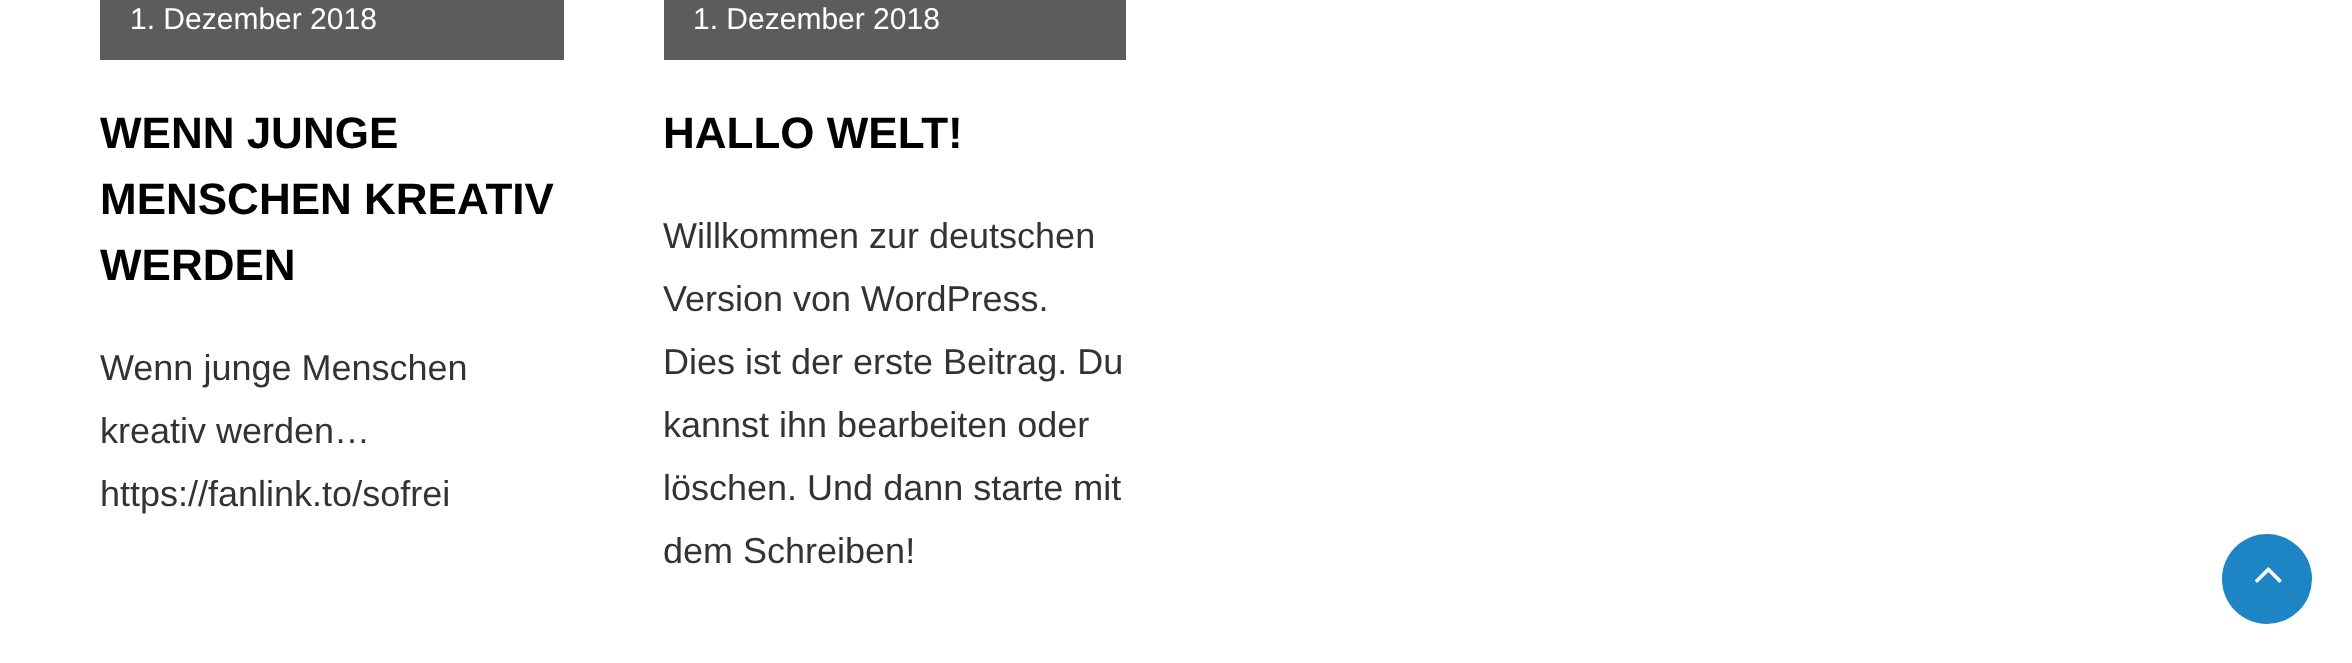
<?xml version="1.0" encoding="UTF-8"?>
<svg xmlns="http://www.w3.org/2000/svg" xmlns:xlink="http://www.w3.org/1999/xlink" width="2352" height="663">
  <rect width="100%" height="100%" fill="#ffffff" />
  <rect x="100" width="464" height="60" fill="#5c5c5c" />
  <rect x="664" width="462" height="60" fill="#5c5c5c" />
  <circle cx="2267" cy="579" r="45" fill="#1e85c5" />
  <image x="2255" y="567" width="27" height="16" xlink:href="image1.png" />
  <text x="130" y="29" style="font-family: Liberation Sans; font-size: 30px; fill: #ffffff">1. Dezember 2018</text>
  <text x="100" y="148" style="font-family: Liberation Sans; font-size: 44px; font-weight: bold; fill: #000000">WENN JUNGE</text>
  <text x="100" y="214" style="font-family: Liberation Sans; font-size: 44px; font-weight: bold; fill: #000000">MENSCHEN KREATIV</text>
  <text x="100" y="280" style="font-family: Liberation Sans; font-size: 44px; font-weight: bold; fill: #000000">WERDEN</text>
  <text x="100" y="380" style="font-family: Liberation Sans; font-size: 36px; fill: #333333">Wenn junge Menschen</text>
  <text x="100" y="443" style="font-family: Liberation Sans; font-size: 36px; fill: #333333">kreativ werden…</text>
  <text x="100" y="506" style="font-family: Liberation Sans; font-size: 36px; fill: #333333">https://fanlink.to/sofrei</text>
  <text x="693" y="29" style="font-family: Liberation Sans; font-size: 30px; fill: #ffffff">1. Dezember 2018</text>
  <text x="663" y="148" style="font-family: Liberation Sans; font-size: 44px; font-weight: bold; fill: #000000">HALLO WELT!</text>
  <text x="663" y="248" style="font-family: Liberation Sans; font-size: 36px; fill: #333333">Willkommen zur deutschen</text>
  <text x="663" y="311" style="font-family: Liberation Sans; font-size: 36px; fill: #333333">Version von WordPress.</text>
  <text x="663" y="374" style="font-family: Liberation Sans; font-size: 36px; fill: #333333">Dies ist der erste Beitrag. Du</text>
  <text x="663" y="437" style="font-family: Liberation Sans; font-size: 36px; fill: #333333">kannst ihn bearbeiten oder</text>
  <text x="663" y="500" style="font-family: Liberation Sans; font-size: 36px; fill: #333333">löschen. Und dann starte mit</text>
  <text x="663" y="563" style="font-family: Liberation Sans; font-size: 36px; fill: #333333">dem Schreiben!</text>
</svg>
